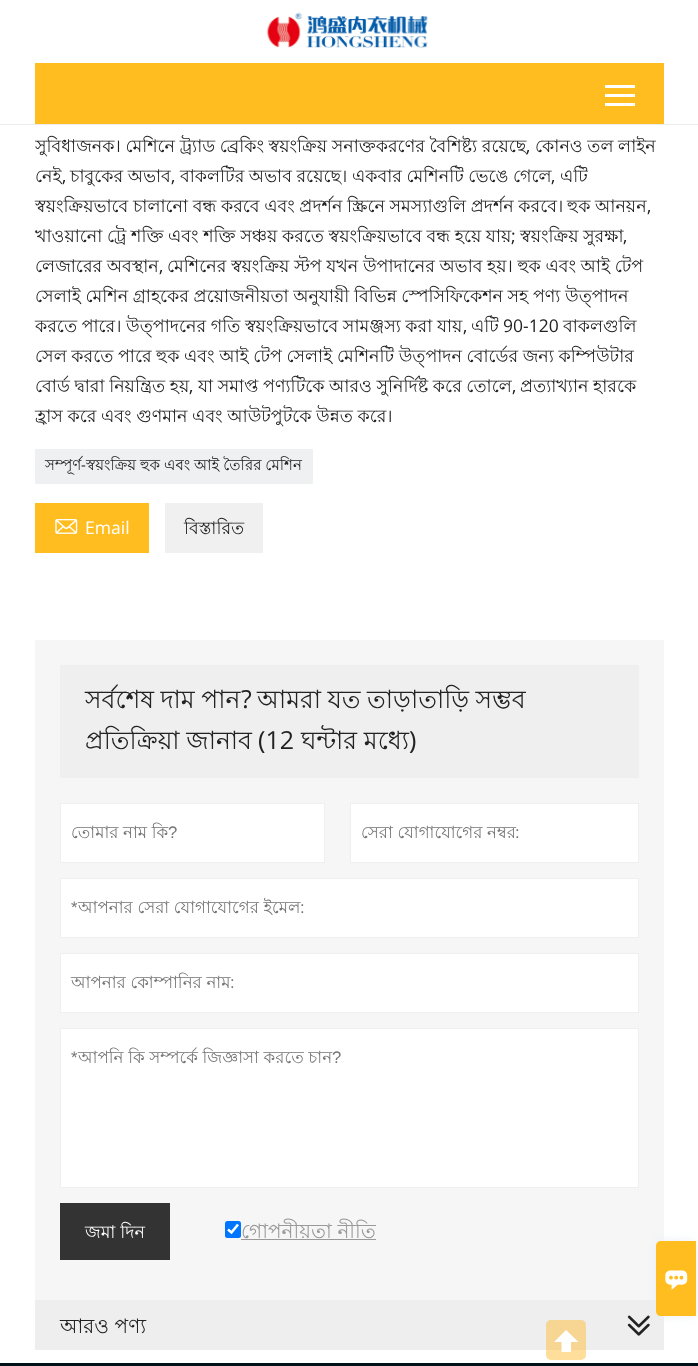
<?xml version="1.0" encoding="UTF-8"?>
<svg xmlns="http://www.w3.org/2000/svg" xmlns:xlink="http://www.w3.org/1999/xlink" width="698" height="1366">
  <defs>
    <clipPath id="clip1"><rect x="35" width="629" height="590" /></clipPath>
  </defs>
  <rect width="100%" height="100%" fill="#ffffff" />
  <rect y="124" width="698" height="1" fill="#ececec" />
  <image x="266" y="12" width="163" height="37" xlink:href="image1.png" />
  <rect x="35" y="63" width="629" height="61" fill="#ffbd1f" />
  <rect x="605" y="94" width="30" height="3" fill="#ffffff" />
  <rect x="605" y="85" width="30" height="3" fill="#ffffff" />
  <rect x="605" y="103" width="30" height="3" fill="#ffffff" />
  <rect x="35" y="449" width="278" height="35" fill="#eef0f1" />
  <rect x="35" y="503" width="114" height="50" fill="#ffbd1f" />
  <image x="55" y="519" width="23" height="15" xlink:href="image2.png" />
  <rect x="165" y="503" width="98" height="50" fill="#f0f0f0" />
  <rect x="35" y="640" width="629" height="660" fill="#f6f6f6" />
  <rect x="60" y="665" width="579" height="113" fill="#efefef" />
  <rect x="60.5" y="803.5" width="264" height="59" fill="#ffffff" stroke="#efefef" />
  <rect x="350.5" y="803.5" width="288" height="59" fill="#ffffff" stroke="#efefef" />
  <rect x="60.5" y="878.5" width="578" height="59" fill="#ffffff" stroke="#efefef" />
  <rect x="60.5" y="953.5" width="578" height="59" fill="#ffffff" stroke="#efefef" />
  <rect x="60.5" y="1028.5" width="578" height="159" fill="#ffffff" stroke="#efefef" />
  <rect x="60" y="1203" width="110" height="57" fill="#333333" />
  <rect x="225" y="1221" width="16" height="17" rx="2.5" fill="#0075ff" />
  <path d="M 228 1229.5 l 3.5 3 l 6.5 -8" fill="none" stroke="#ffffff" stroke-width="2.6" />
  <rect x="241" y="1239" width="135" height="1" fill="#999999" />
  <rect x="35" y="1300" width="629" height="50" fill="#eeeeee" />
  <image x="627" y="1315" width="23" height="21" xlink:href="image3.png" />
  <rect y="1363" width="698" height="3" fill="#001018" />
  <rect x="656" y="1241" width="40" height="75" rx="5" fill="#eaf0f6" filter="blur(5px)" />
  <path d="M 661 1241 h 35 v 75 h -35 c -3 0 -5 -2 -5 -5 v -65 c 0 -3 2 -5 5 -5 z" fill="#ffbd1f" />
  <image x="665" y="1270" width="23" height="20" xlink:href="image4.png" />
  <rect x="546" y="1320" width="40" height="40" rx="5" fill="#ffbb35" fill-opacity="0.5" />
  <path d="M 578.5 1342 l -12.5 -12 l -12 12 h 7.5 v 10 h 9.5 v -10 z" fill="#ffffff" />
  <g clip-path="url(#clip1)">
    <text x="35" y="152" word-spacing="-0.25" style="font-family: Lohit Bengali; font-size: 17.5px; fill: #222222">সুবিধাজনক। মেশিনে ট্র্যাড ব্রেকিং স্বয়ংক্রিয় সনাক্তকরণের বৈশিষ্ট্য রয়েছে</text>
  </g>
  <text x="526" y="152" style="font-family: Open Sans; font-size: 17.5px; fill: #222222">,</text>
  <text x="535" y="152" word-spacing="-0.25" style="font-family: Lohit Bengali; font-size: 17.5px; fill: #222222">কোনও তল লাইন</text>
  <text x="35" y="182" style="font-family: Lohit Bengali; font-size: 17.5px; fill: #222222">নেই</text>
  <text x="62" y="182" style="font-family: Open Sans; font-size: 17.5px; fill: #222222">,</text>
  <text x="70" y="182" word-spacing="-0.25" style="font-family: Lohit Bengali; font-size: 17.5px; fill: #222222">চাবুকের অভাব</text>
  <text x="171" y="182" style="font-family: Open Sans; font-size: 17.5px; fill: #222222">,</text>
  <text x="180" y="182" word-spacing="-0.25" style="font-family: Lohit Bengali; font-size: 17.5px; fill: #222222">বাকলটির অভাব রয়েছে। একবার মেশিনটি ভেঙে গেলে</text>
  <text x="551" y="182" style="font-family: Open Sans; font-size: 17.5px; fill: #222222">,</text>
  <text x="560" y="182" style="font-family: Lohit Bengali; font-size: 17.5px; fill: #222222">এটি</text>
  <text x="35" y="212" word-spacing="-0.25" style="font-family: Lohit Bengali; font-size: 17.5px; fill: #222222">স্বয়ংক্রিয়ভাবে চালানো বন্ধ করবে এবং প্রদর্শন স্ক্রিনে সমস্যাগুলি প্রদর্শন করবে।</text>
  <text x="567" y="212" word-spacing="-0.25" style="font-family: Lohit Bengali; font-size: 17.5px; fill: #222222">হুক আনয়ন</text>
  <text x="647" y="212" style="font-family: Open Sans; font-size: 17.5px; fill: #222222">,</text>
  <text x="35" y="242" word-spacing="-0.25" style="font-family: Lohit Bengali; font-size: 17.5px; fill: #222222">খাওয়ানো ট্রে শক্তি এবং শক্তি সঞ্চয় করতে স্বয়ংক্রিয়ভাবে বন্ধ হয়ে যায়</text>
  <text x="511" y="242" style="font-family: Open Sans; font-size: 17.5px; fill: #222222">;</text>
  <text x="520" y="242" word-spacing="-0.25" style="font-family: Lohit Bengali; font-size: 17.5px; fill: #222222">স্বয়ংক্রিয় সুরক্ষা</text>
  <text x="623" y="242" style="font-family: Open Sans; font-size: 17.5px; fill: #222222">,</text>
  <text x="35" y="272" word-spacing="-0.25" style="font-family: Lohit Bengali; font-size: 17.5px; fill: #222222">লেজারের অবস্থান</text>
  <text x="159" y="272" style="font-family: Open Sans; font-size: 17.5px; fill: #222222">,</text>
  <text x="167" y="272" word-spacing="-0.25" style="font-family: Lohit Bengali; font-size: 17.5px; fill: #222222">মেশিনের স্বয়ংক্রিয় স্টপ যখন উপাদানের অভাব হয়। হুক এবং আই টেপ</text>
  <text x="35" y="302" word-spacing="-0.25" style="font-family: Lohit Bengali; font-size: 17.5px; fill: #222222">সেলাই মেশিন গ্রাহকের প্রয়োজনীয়তা অনুযায়ী বিভিন্ন স্পেসিফিকেশন সহ পণ্য উত্পাদন</text>
  <text x="35" y="332" word-spacing="-0.25" style="font-family: Lohit Bengali; font-size: 17.5px; fill: #222222">করতে পারে। উত্পাদনের গতি স্বয়ংক্রিয়ভাবে সামঞ্জস্য করা যায়</text>
  <text x="463" y="332" style="font-family: Open Sans; font-size: 17.5px; fill: #222222">,</text>
  <text x="471" y="332" style="font-family: Lohit Bengali; font-size: 17.5px; fill: #222222">এটি</text>
  <text x="503" y="332" style="font-family: Open Sans; font-size: 17.5px; fill: #222222">90-120</text>
  <text x="563" y="332" style="font-family: Lohit Bengali; font-size: 17.5px; fill: #222222">বাকলগুলি</text>
  <text x="35" y="362" word-spacing="-0.25" style="font-family: Lohit Bengali; font-size: 17.5px; fill: #222222">সেল করতে পারে</text>
  <text x="156" y="362" word-spacing="-0.25" style="font-family: Lohit Bengali; font-size: 17.5px; fill: #222222">হুক এবং আই টেপ সেলাই মেশিনটি উত্পাদন বোর্ডের জন্য কম্পিউটার</text>
  <text x="35" y="392" word-spacing="-0.25" style="font-family: Lohit Bengali; font-size: 17.5px; fill: #222222">বোর্ড দ্বারা নিয়ন্ত্রিত হয়</text>
  <text x="189" y="392" style="font-family: Open Sans; font-size: 17.5px; fill: #222222">,</text>
  <text x="198" y="392" word-spacing="-0.25" style="font-family: Lohit Bengali; font-size: 17.5px; fill: #222222">যা সমাপ্ত পণ্যটিকে আরও সুনির্দিষ্ট করে তোলে</text>
  <text x="512" y="392" style="font-family: Open Sans; font-size: 17.5px; fill: #222222">,</text>
  <text x="520" y="392" word-spacing="-0.25" style="font-family: Lohit Bengali; font-size: 17.5px; fill: #222222">প্রত্যাখ্যান হারকে</text>
  <text x="35" y="422" word-spacing="-0.25" style="font-family: Lohit Bengali; font-size: 17.5px; fill: #222222">হ্রাস করে এবং গুণমান এবং আউটপুটকে উন্নত করে।</text>
  <text x="45" y="470" style="font-family: Lohit Bengali; font-size: 15px; fill: #222222">সম্পূর্ণ</text>
  <text x="81" y="470" style="font-family: Open Sans; font-size: 15px; fill: #222222">-</text>
  <text x="86" y="470" word-spacing="-0.25" style="font-family: Lohit Bengali; font-size: 15px; fill: #222222">স্বয়ংক্রিয় হুক এবং আই তৈরির মেশিন</text>
  <text x="85" y="534" style="font-family: Open Sans; font-size: 17.5px; fill: #ffffff">Email</text>
  <text x="184" y="534" style="font-family: Lohit Bengali; font-size: 17.5px; fill: #222222">বিস্তারিত</text>
  <text x="85" y="708" word-spacing="-0.5" style="font-family: Lohit Bengali; font-size: 25px; fill: #222222">সর্বশেষ দাম পান</text>
  <text x="241" y="708" style="font-family: Open Sans; font-size: 25px; fill: #222222">?</text>
  <text x="257" y="708" word-spacing="-0.5" style="font-family: Lohit Bengali; font-size: 25px; fill: #222222">আমরা যত তাড়াতাড়ি সম্ভব</text>
  <text x="85" y="749" word-spacing="-0.25" style="font-family: Lohit Bengali; font-size: 25px; fill: #222222">প্রতিক্রিয়া জানাব</text>
  <text x="258" y="749" style="font-family: Open Sans; font-size: 25px; fill: #222222">(12</text>
  <text x="301" y="749" word-spacing="-0.25" style="font-family: Lohit Bengali; font-size: 25px; fill: #222222">ঘন্টার মধ্যে</text>
  <text x="409" y="749" style="font-family: Open Sans; font-size: 25px; fill: #222222">)</text>
  <text x="71" y="838" style="font-family: Lohit Bengali; font-size: 16.7px; fill: #757575">তোমার নাম কি</text>
  <text x="168" y="838" style="font-family: Liberation Sans; font-size: 16.7px; fill: #757575">?</text>
  <text x="361" y="838" style="font-family: Lohit Bengali; font-size: 16.7px; fill: #757575">সেরা যোগাযোগের নম্বর</text>
  <text x="515" y="838" style="font-family: Liberation Sans; font-size: 16.7px; fill: #757575">:</text>
  <text x="71" y="913" style="font-family: Liberation Sans; font-size: 16.7px; fill: #757575">*</text>
  <text x="78" y="913" style="font-family: Lohit Bengali; font-size: 16.7px; fill: #757575">আপনার সেরা যোগাযোগের ইমেল</text>
  <text x="300" y="913" style="font-family: Liberation Sans; font-size: 16.7px; fill: #757575">:</text>
  <text x="71" y="988" style="font-family: Lohit Bengali; font-size: 16.7px; fill: #757575">আপনার কোম্পানির নাম</text>
  <text x="230" y="988" style="font-family: Liberation Sans; font-size: 16.7px; fill: #757575">:</text>
  <text x="71" y="1063" style="font-family: Liberation Sans; font-size: 16.7px; fill: #757575">*</text>
  <text x="78" y="1063" style="font-family: Lohit Bengali; font-size: 16.7px; fill: #757575">আপনি কি সম্পর্কে জিজ্ঞাসা করতে চান</text>
  <text x="332" y="1063" style="font-family: Liberation Sans; font-size: 16.7px; fill: #757575">?</text>
  <text x="85" y="1238" style="font-family: Lohit Bengali; font-size: 17.5px; fill: #ffffff">জমা দিন</text>
  <text x="241" y="1238" style="font-family: Lohit Bengali; font-size: 20px; fill: #999999">গোপনীয়তা নীতি</text>
  <text x="60" y="1333" style="font-family: Lohit Bengali; font-size: 20px; fill: #222222">আরও পণ্য</text>
</svg>
